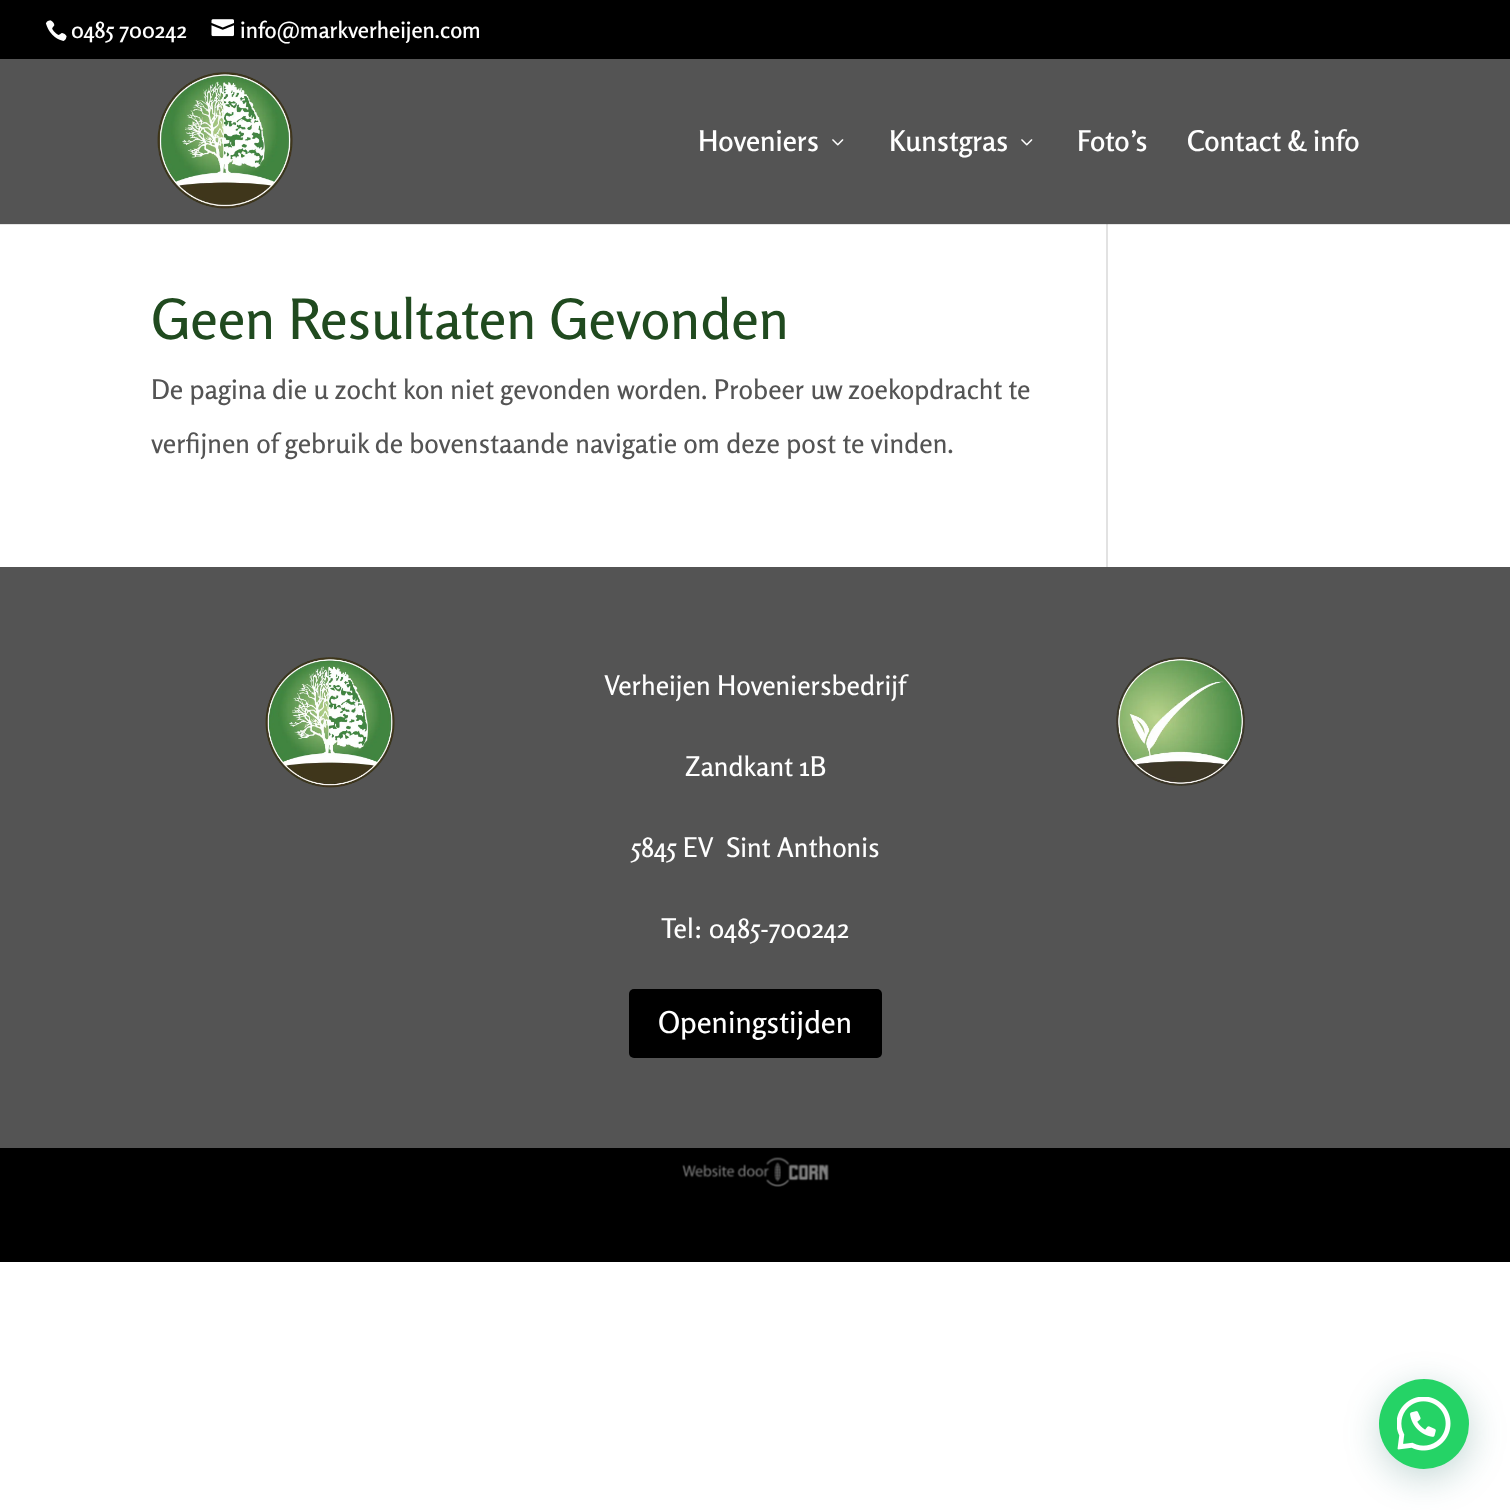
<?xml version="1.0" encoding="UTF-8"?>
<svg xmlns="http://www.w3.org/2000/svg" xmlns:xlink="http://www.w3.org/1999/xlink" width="1510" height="1510">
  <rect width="100%" height="100%" fill="#ffffff" />
  <rect width="1510" height="59" fill="#000000" />
  <image x="45" y="20" width="22" height="21" xlink:href="image1.png" />
  <image x="211" y="19" width="23" height="18" xlink:href="image2.png" />
  <rect x="1106" y="224" width="2" height="343" fill="#e2e2e2" />
  <path d="M 0 224 v 1 h 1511 v -165 h -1 v 164 z" fill="#000000" fill-opacity="0.1" />
  <rect y="59" width="1510" height="165" fill="#545454" />
  <image x="157" y="72" width="136" height="137" xlink:href="image3.png" />
  <image x="832" y="139" width="12" height="7" xlink:href="image4.png" />
  <image x="1021" y="139" width="12" height="7" xlink:href="image4.png" />
  <rect y="567" width="1510" height="581" fill="#545454" />
  <image x="265" y="657" width="130" height="131" xlink:href="image5.png" />
  <rect x="629" y="989" width="253" height="69" rx="5" fill="#000000" />
  <image x="1116" y="657" width="129" height="129" xlink:href="image6.png" />
  <rect y="1148" width="1510" height="114" fill="#000000" />
  <image x="682" y="1157" width="147" height="30" xlink:href="image7.png" />
  <rect x="1380" y="1388" width="90" height="90" rx="45" fill="#075e54" fill-opacity="0.24" filter="blur(18px)" />
  <circle cx="1424" cy="1424" r="45" fill="#25d366" />
  <image x="1397" y="1397" width="54" height="54" xlink:href="image8.png" />
  <text x="71" y="38" style="font-family: Rosario; font-size: 22.5px; font-weight: 600; fill: #ffffff">0485 700242</text>
  <text x="240" y="38" style="font-family: Rosario; font-size: 22.5px; font-weight: 600; fill: #ffffff">info@markverheijen.com</text>
  <text x="698" y="151" style="font-family: Rosario; font-size: 28.5px; font-weight: 600; fill: #ffffff">Hoveniers</text>
  <text x="889" y="151" style="font-family: Rosario; font-size: 28.5px; font-weight: 600; fill: #ffffff">Kunstgras</text>
  <text x="1077" y="151" style="font-family: Rosario; font-size: 28.5px; font-weight: 600; fill: #ffffff">Foto’s</text>
  <text x="1187" y="151" style="font-family: Rosario; font-size: 28.5px; font-weight: 600; fill: #ffffff">Contact &amp; info</text>
  <text x="151" y="339" style="font-family: Rosario; font-size: 55.5px; font-weight: 500; fill: #204a1f">Geen Resultaten Gevonden</text>
  <text x="151" y="399" style="font-family: Rosario; font-size: 27px; font-weight: 500; fill: #545454">De pagina die u zocht kon niet gevonden worden. Probeer uw zoekopdracht te</text>
  <text x="151" y="453" style="font-family: Rosario; font-size: 27px; font-weight: 500; fill: #545454">verfijnen of gebruik de bovenstaande navigatie om deze post te vinden.</text>
  <text x="604" y="695" style="font-family: Rosario; font-size: 27px; font-weight: 500; fill: #ffffff">Verheijen Hoveniersbedrijf</text>
  <text x="685" y="776" style="font-family: Rosario; font-size: 27px; font-weight: 500; fill: #ffffff">Zandkant 1B</text>
  <text x="631" y="857" style="font-family: Rosario; font-size: 27px; font-weight: 500; fill: #ffffff" xml:space="preserve">5845 EV  Sint Anthonis</text>
  <text x="661" y="938" style="font-family: Rosario; font-size: 27px; font-weight: 500; fill: #ffffff">Tel: 0485-700242</text>
  <text x="658" y="1033" style="font-family: Rosario; font-size: 30px; font-weight: 500; fill: #ffffff">Openingstijden</text>
</svg>
